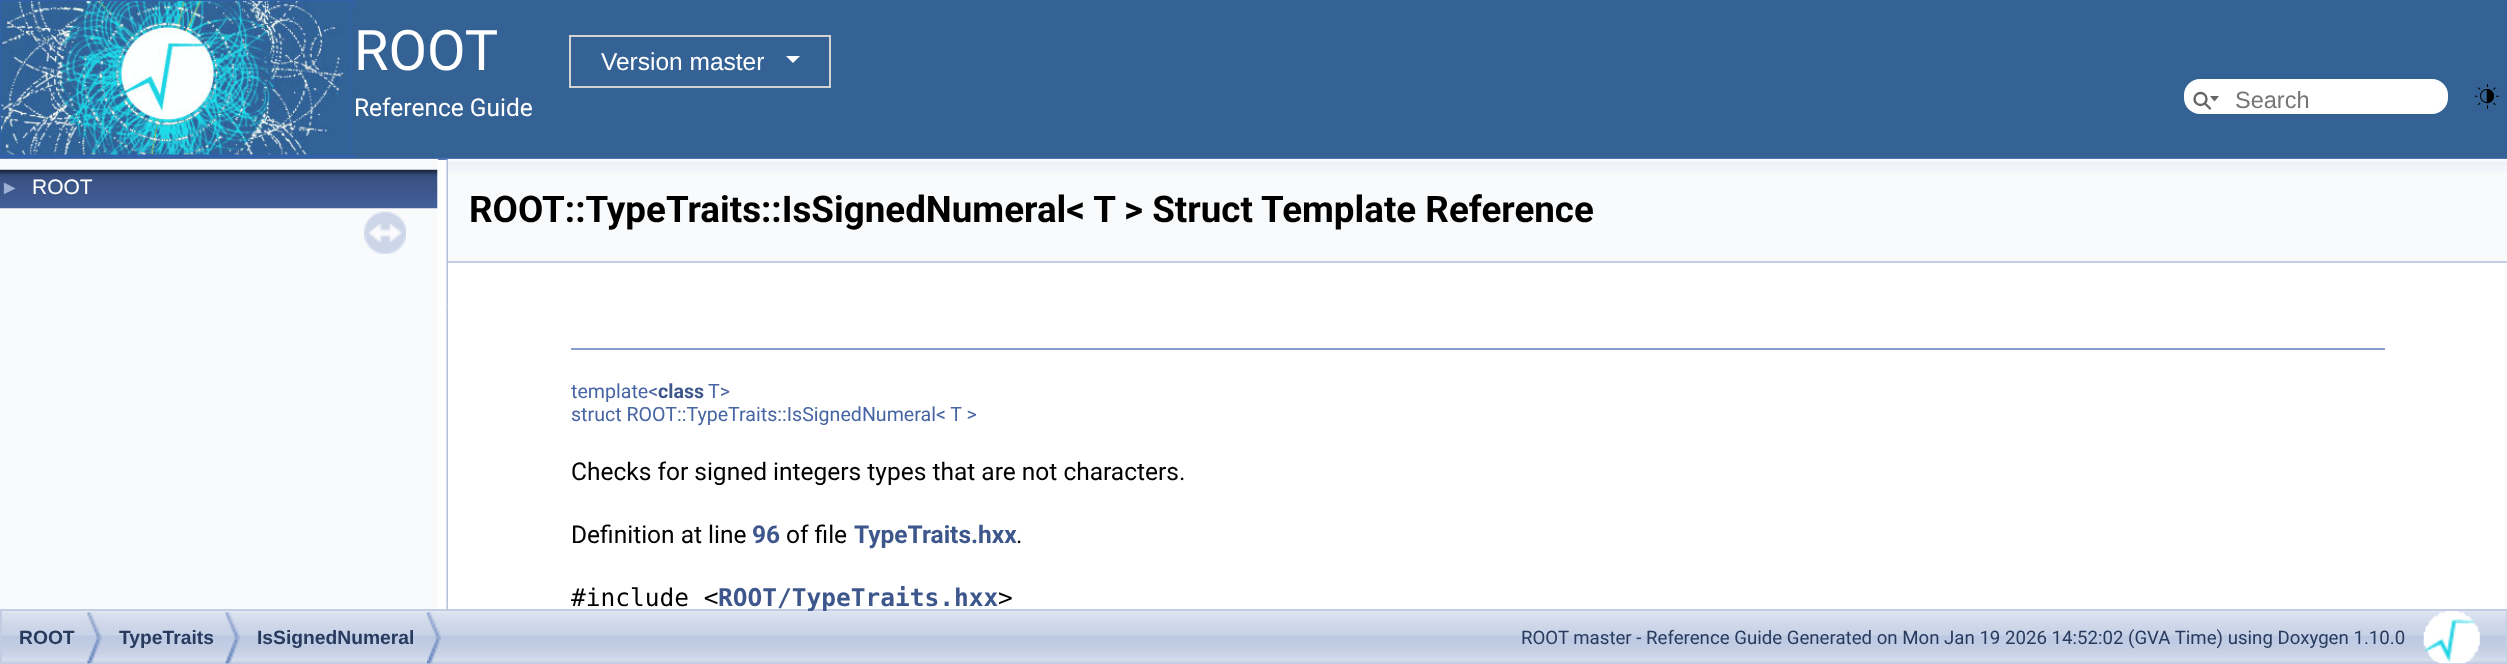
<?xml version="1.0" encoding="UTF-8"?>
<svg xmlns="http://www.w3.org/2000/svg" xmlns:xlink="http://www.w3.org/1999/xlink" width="2507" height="664">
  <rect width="100%" height="100%" fill="#ffffff" />
  <rect y="158" width="2507" height="2" fill="#5373b4" />
  <rect width="2507" height="158" fill="#346295" />
  <image x="0" y="0" width="356" height="158" xlink:href="image1.png" />
  <rect x="570" y="36" width="260" height="51" fill="none" stroke="#d3d3d3" stroke-width="2" />
  <path d="M 786 56 h 14 l -7 7 z" fill="#ffffff" />
  <rect x="2184" y="79" width="264" height="35" rx="16" fill="#ffffff" />
  <circle cx="2200.5" cy="99" r="6" fill="none" stroke="#656565" stroke-width="2.4" />
  <path d="M 2210 96 l 4.5 5.5 l 4.5 -5.5 z" fill="#656565" />
  <path d="M 2205 103.5 l 5 5" fill="none" stroke="#656565" stroke-width="2.4" stroke-linecap="round" />
  <image x="2475" y="84" width="24" height="25" xlink:href="image2.png" />
  <rect y="159" width="438" height="450" fill="#f9fafc" />
  <image x="0" y="169" width="438" height="40" xlink:href="image3.png" />
  <image x="364" y="211" width="42" height="43" xlink:href="image4.png" />
  <image x="446" y="159" width="2" height="450" xlink:href="image5.png" />
  <rect x="448" y="159" width="2059" height="102" fill="#f9fafc" />
  <image x="448" y="161" width="2059" height="12" xlink:href="image6.png" />
  <rect x="448" y="261" width="2059" height="2" fill="#c4cfe5" />
  <rect x="571" y="348" width="1814" height="2" fill="#879ecb" />
  <image x="2" y="611" width="2504" height="52" xlink:href="image7.png" />
  <rect x="1" y="610" width="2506" height="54" fill="none" stroke="#c2cde4" stroke-width="2" />
  <image x="87" y="612" width="15" height="52" xlink:href="image8.png" />
  <image x="225" y="612" width="15" height="52" xlink:href="image9.png" />
  <image x="427" y="612" width="14" height="52" xlink:href="image10.png" />
  <image x="2423" y="611" width="57" height="53" xlink:href="image11.png" />
  <text x="354" y="70" style="font-family: Roboto; font-size: 56px; fill: #ffffff">ROOT</text>
  <text x="601" y="70" style="font-family: Liberation Sans; font-size: 24.5px; fill: #ffffff">Version master</text>
  <text x="354" y="116" style="font-family: Roboto; font-size: 24.5px; fill: #ffffff">Reference Guide</text>
  <text x="2235" y="108" style="font-family: Liberation Sans; font-size: 23.5px; fill: #757575">Search</text>
  <text x="0" y="194" style="font-family: Liberation Sans; font-size: 19.6px; fill: #9cafd4">►</text>
  <text x="32" y="194" style="font-family: Liberation Sans; font-size: 21px; fill: #ffffff">ROOT</text>
  <text x="469" y="222" style="font-family: Roboto; font-size: 36.75px; font-weight: bold; fill: #000000">ROOT::TypeTraits::IsSignedNumeral&lt; T &gt; Struct Template Reference</text>
  <text x="571" y="398" style="font-family: Roboto; font-size: 19.6px; fill: #4665a2">template&lt;</text>
  <text x="658" y="398" style="font-family: Roboto; font-size: 19.6px; font-weight: bold; fill: #3d578c">class</text>
  <text x="708" y="398" style="font-family: Roboto; font-size: 19.6px; fill: #4665a2">T&gt;</text>
  <text x="571" y="421" style="font-family: Roboto; font-size: 19.6px; fill: #4665a2">struct ROOT::TypeTraits::IsSignedNumeral&lt; T &gt;</text>
  <text x="571" y="480" style="font-family: Roboto; font-size: 24.5px; fill: #000000">Checks for signed integers types that are not characters.</text>
  <text x="571" y="543" style="font-family: Roboto; font-size: 24.5px; fill: #000000">Definition at line</text>
  <text x="752" y="543" style="font-family: Roboto; font-size: 24.5px; font-weight: bold; fill: #3d578c">96</text>
  <text x="786" y="543" style="font-family: Roboto; font-size: 24.5px; fill: #000000">of file</text>
  <text x="854" y="543" style="font-family: Roboto; font-size: 24.5px; font-weight: bold; fill: #3d578c">TypeTraits.hxx</text>
  <text x="1016" y="543" style="font-family: Roboto; font-size: 24.5px; fill: #000000">.</text>
  <text x="571" y="606" style="font-family: DejaVu Sans Mono; font-size: 24.5px; fill: #000000">#include &lt;</text>
  <text x="718" y="606" style="font-family: DejaVu Sans Mono; font-size: 24.5px; font-weight: bold; fill: #3d578c">ROOT/TypeTraits.hxx</text>
  <text x="998" y="606" style="font-family: DejaVu Sans Mono; font-size: 24.5px; fill: #000000">&gt;</text>
  <text x="19" y="644" style="font-family: Liberation Sans; font-size: 19.25px; font-weight: bold; fill: #283a5d">ROOT</text>
  <text x="119" y="644" style="font-family: Liberation Sans; font-size: 19.25px; font-weight: bold; fill: #283a5d">TypeTraits</text>
  <text x="257" y="644" style="font-family: Liberation Sans; font-size: 19.25px; font-weight: bold; fill: #283a5d">IsSignedNumeral</text>
  <text x="1521" y="644" style="font-family: Roboto; font-size: 18.65px; fill: #283a5d">ROOT master - Reference Guide Generated on Mon Jan 19 2026 14:52:02 (GVA Time) using Doxygen 1.10.0</text>
</svg>
